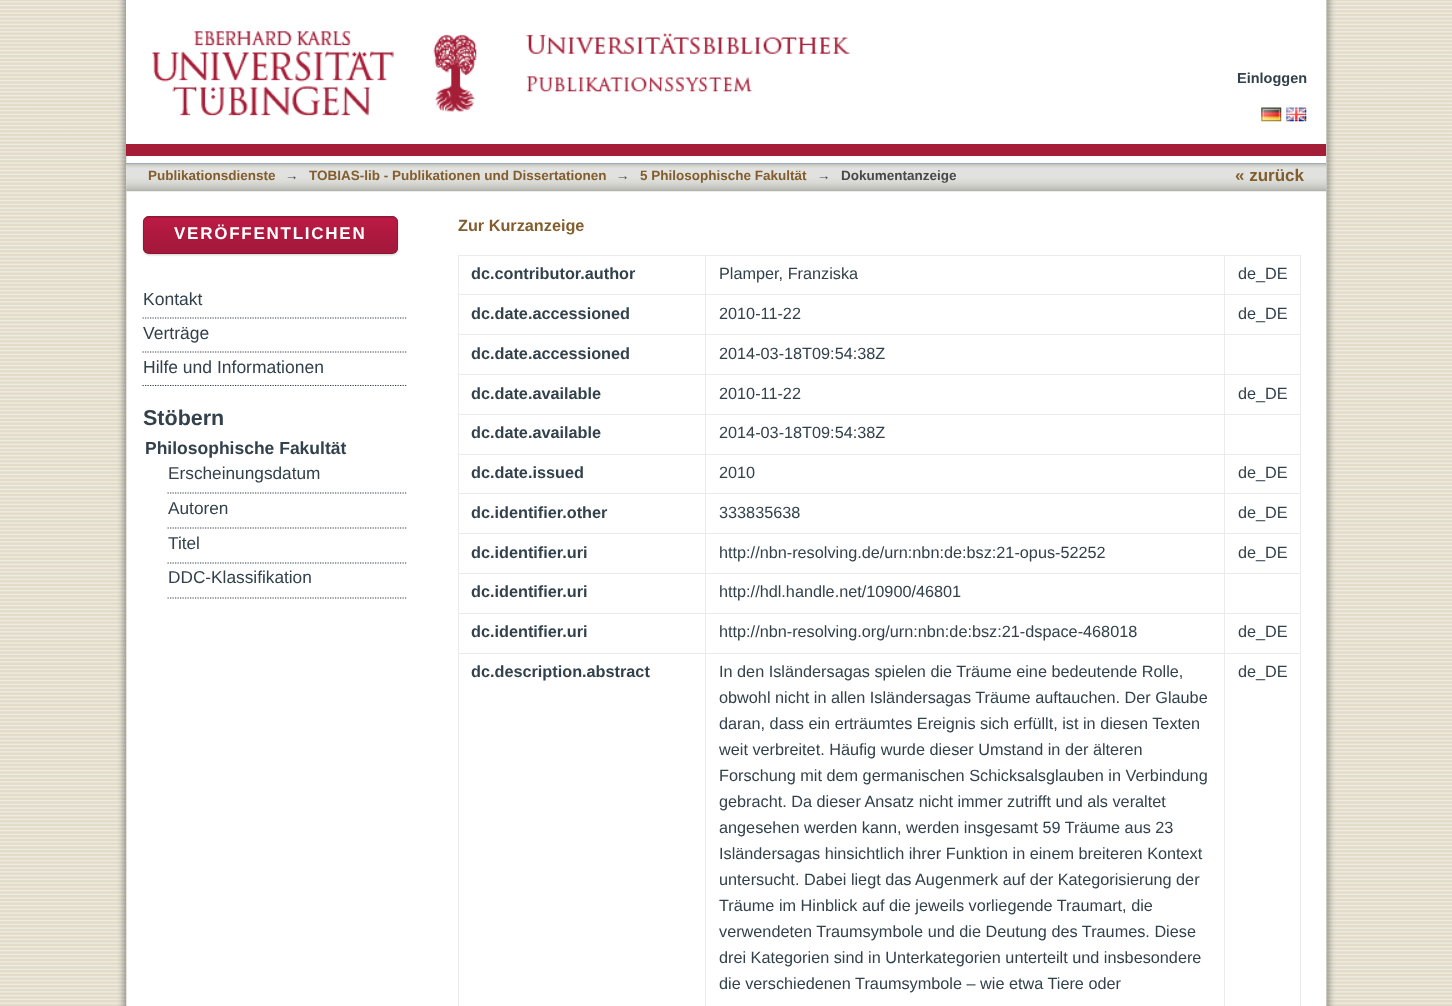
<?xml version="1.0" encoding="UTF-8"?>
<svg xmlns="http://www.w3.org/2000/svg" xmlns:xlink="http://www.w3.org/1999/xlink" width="1452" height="1006">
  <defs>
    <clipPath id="clip1"><rect x="143" y="216" width="255" height="38" rx="6" /></clipPath>
    <linearGradient id="g1" gradientUnits="userSpaceOnUse" x1="270" y1="183" x2="270" y2="218"><stop offset="0" stop-color="#bb1a43" /><stop offset="1" stop-color="#a2183b" /></linearGradient>
    <linearGradient id="g2" gradientUnits="userSpaceOnUse" x1="270" y1="218" x2="270" y2="253"><stop offset="0" stop-color="#bb1a43" /><stop offset="1" stop-color="#a2183b" /></linearGradient>
  </defs>
  <rect width="100%" height="100%" fill="#ffffff" />
  <image x="0" y="0" width="1452" height="1006" xlink:href="image1.png" />
  <image x="117" y="0" width="1219" height="1006" xlink:href="image2.png" />
  <rect x="126" width="1" height="144" fill="#ffffff" />
  <rect x="126" y="144" width="1200" height="12" fill="#a51e37" />
  <image x="152" y="31" width="325" height="85" xlink:href="image3.png" />
  <image x="526" y="33" width="325" height="59" xlink:href="image4.png" />
  <image x="126" y="163" width="1201" height="29" xlink:href="image5.png" />
  <rect x="126" y="163" width="1200" height="1" fill="#9cacba" />
  <image x="1261" y="107" width="21" height="15" xlink:href="image6.png" />
  <image x="1286" y="107" width="21" height="15" xlink:href="image7.png" />
  <rect x="143" y="218" width="255" height="37" rx="6" fill="#000000" fill-opacity="0.2" filter="blur(1px)" />
  <g clip-path="url(#clip1)">
    <rect x="143" y="216" width="255" height="2" fill="url(#g1)" />
    <rect x="143" y="218" width="255" height="35" fill="url(#g2)" />
  </g>
  <rect x="143.5" y="216.5" width="254" height="37" rx="5.5" fill="none" stroke="#901735" />
  <path d="M 142.5 318 h 265" fill="none" stroke="#32414b" stroke-width="1.2" stroke-dasharray="1.25 1.25" />
  <path d="M 142.5 352 h 265" fill="none" stroke="#32414b" stroke-width="1.2" stroke-dasharray="1.25 1.25" />
  <path d="M 142.5 385.5 h 265" fill="none" stroke="#32414b" stroke-width="1.2" stroke-dasharray="1.25 1.25" />
  <path d="M 167.5 493 h 240" fill="none" stroke="#32414b" stroke-width="1.2" stroke-dasharray="1.25 1.25" />
  <path d="M 167.5 528 h 240" fill="none" stroke="#32414b" stroke-width="1.2" stroke-dasharray="1.25 1.25" />
  <path d="M 167.5 563 h 240" fill="none" stroke="#32414b" stroke-width="1.2" stroke-dasharray="1.25 1.25" />
  <path d="M 167.5 598 h 240" fill="none" stroke="#32414b" stroke-width="1.2" stroke-dasharray="1.25 1.25" />
  <rect x="458" y="255" width="843" height="1" fill="#ebebeb" />
  <rect x="458" y="294" width="843" height="1" fill="#ebebeb" />
  <rect x="458" y="334" width="843" height="1" fill="#ebebeb" />
  <rect x="458" y="374" width="843" height="1" fill="#ebebeb" />
  <rect x="458" y="414" width="843" height="1" fill="#ebebeb" />
  <rect x="458" y="454" width="843" height="1" fill="#ebebeb" />
  <rect x="458" y="493" width="843" height="1" fill="#ebebeb" />
  <rect x="458" y="533" width="843" height="1" fill="#ebebeb" />
  <rect x="458" y="573" width="843" height="1" fill="#ebebeb" />
  <rect x="458" y="613" width="843" height="1" fill="#ebebeb" />
  <rect x="458" y="653" width="843" height="1" fill="#ebebeb" />
  <rect x="1300" y="653" width="1" height="353" fill="#ebebeb" />
  <rect x="1300" y="613" width="1" height="41" fill="#ebebeb" />
  <rect x="1300" y="573" width="1" height="41" fill="#ebebeb" />
  <rect x="1300" y="533" width="1" height="41" fill="#ebebeb" />
  <rect x="1300" y="493" width="1" height="41" fill="#ebebeb" />
  <rect x="1300" y="454" width="1" height="40" fill="#ebebeb" />
  <rect x="1300" y="414" width="1" height="41" fill="#ebebeb" />
  <rect x="1300" y="374" width="1" height="41" fill="#ebebeb" />
  <rect x="1300" y="334" width="1" height="41" fill="#ebebeb" />
  <rect x="1300" y="294" width="1" height="41" fill="#ebebeb" />
  <rect x="1300" y="255" width="1" height="40" fill="#ebebeb" />
  <rect x="458" y="653" width="1" height="353" fill="#ebebeb" />
  <rect x="458" y="613" width="1" height="41" fill="#ebebeb" />
  <rect x="458" y="573" width="1" height="41" fill="#ebebeb" />
  <rect x="458" y="533" width="1" height="41" fill="#ebebeb" />
  <rect x="458" y="493" width="1" height="41" fill="#ebebeb" />
  <rect x="458" y="454" width="1" height="40" fill="#ebebeb" />
  <rect x="458" y="414" width="1" height="41" fill="#ebebeb" />
  <rect x="458" y="374" width="1" height="41" fill="#ebebeb" />
  <rect x="458" y="334" width="1" height="41" fill="#ebebeb" />
  <rect x="458" y="294" width="1" height="41" fill="#ebebeb" />
  <rect x="458" y="255" width="1" height="40" fill="#ebebeb" />
  <rect x="705" y="255" width="1" height="751" fill="#ebebeb" />
  <rect x="1224" y="255" width="1" height="751" fill="#ebebeb" />
  <text x="1237" y="83" style="font-family: Liberation Sans; font-size: 14.5px; font-weight: bold; fill: #32414b">Einloggen</text>
  <text x="148" y="180" style="font-family: Liberation Sans; font-size: 13.5px; font-weight: bold; fill: #825d2d">Publikationsdienste</text>
  <text x="285" y="180" style="font-family: Liberation Sans; font-size: 13.5px; font-weight: bold; fill: #484848">→</text>
  <text x="309" y="180" style="font-family: Liberation Sans; font-size: 13.5px; font-weight: bold; fill: #825d2d">TOBIAS-lib - Publikationen und Dissertationen</text>
  <text x="616" y="180" style="font-family: Liberation Sans; font-size: 13.5px; font-weight: bold; fill: #484848">→</text>
  <text x="640" y="180" style="font-family: Liberation Sans; font-size: 13.5px; font-weight: bold; fill: #825d2d">5 Philosophische Fakultät</text>
  <text x="817" y="180" style="font-family: Liberation Sans; font-size: 13.5px; font-weight: bold; fill: #484848">→</text>
  <text x="841" y="180" style="font-family: Liberation Sans; font-size: 13.5px; font-weight: bold; fill: #484848">Dokumentanzeige</text>
  <text x="1235" y="181" style="font-family: Liberation Sans; font-size: 17px; font-weight: bold; fill: #825d2d">« zurück</text>
  <text x="174" y="239" style="font-family: Liberation Sans; font-size: 17px; font-weight: bold; letter-spacing: 1.75px; fill: #ffffff">VERÖFFENTLICHEN</text>
  <text x="143" y="305" style="font-family: Liberation Sans; font-size: 17.5px; fill: #32414b">Kontakt</text>
  <text x="143" y="339" style="font-family: Liberation Sans; font-size: 17.5px; fill: #32414b">Verträge</text>
  <text x="143" y="373" style="font-family: Liberation Sans; font-size: 17.5px; fill: #32414b">Hilfe und Informationen</text>
  <text x="143" y="425" style="font-family: Liberation Sans; font-size: 21.5px; font-weight: bold; fill: #32414b">Stöbern</text>
  <text x="145" y="454" style="font-family: Liberation Sans; font-size: 17.5px; font-weight: bold; fill: #32414b">Philosophische Fakultät</text>
  <text x="168" y="479" style="font-family: Liberation Sans; font-size: 17.25px; fill: #32414b">Erscheinungsdatum</text>
  <text x="168" y="514" style="font-family: Liberation Sans; font-size: 17.25px; fill: #32414b">Autoren</text>
  <text x="168" y="549" style="font-family: Liberation Sans; font-size: 17.25px; fill: #32414b">Titel</text>
  <text x="168" y="583" style="font-family: Liberation Sans; font-size: 17.25px; fill: #32414b">DDC-Klassifikation</text>
  <text x="458" y="231" style="font-family: Liberation Sans; font-size: 16.25px; font-weight: bold; fill: #825d2d">Zur Kurzanzeige</text>
  <text x="471" y="279" style="font-family: Liberation Sans; font-size: 16.25px; font-weight: bold; fill: #32414b">dc.contributor.author</text>
  <text x="719" y="279" style="font-family: Liberation Sans; font-size: 16.25px; fill: #32414b">Plamper, Franziska</text>
  <text x="1238" y="279" style="font-family: Liberation Sans; font-size: 16.25px; fill: #32414b">de_DE</text>
  <text x="471" y="319" style="font-family: Liberation Sans; font-size: 16.25px; font-weight: bold; fill: #32414b">dc.date.accessioned</text>
  <text x="719" y="319" style="font-family: Liberation Sans; font-size: 16.25px; fill: #32414b">2010-11-22</text>
  <text x="1238" y="319" style="font-family: Liberation Sans; font-size: 16.25px; fill: #32414b">de_DE</text>
  <text x="471" y="359" style="font-family: Liberation Sans; font-size: 16.25px; font-weight: bold; fill: #32414b">dc.date.accessioned</text>
  <text x="719" y="359" style="font-family: Liberation Sans; font-size: 16.25px; fill: #32414b">2014-03-18T09:54:38Z</text>
  <text x="471" y="399" style="font-family: Liberation Sans; font-size: 16.25px; font-weight: bold; fill: #32414b">dc.date.available</text>
  <text x="719" y="399" style="font-family: Liberation Sans; font-size: 16.25px; fill: #32414b">2010-11-22</text>
  <text x="1238" y="399" style="font-family: Liberation Sans; font-size: 16.25px; fill: #32414b">de_DE</text>
  <text x="471" y="438" style="font-family: Liberation Sans; font-size: 16.25px; font-weight: bold; fill: #32414b">dc.date.available</text>
  <text x="719" y="438" style="font-family: Liberation Sans; font-size: 16.25px; fill: #32414b">2014-03-18T09:54:38Z</text>
  <text x="471" y="478" style="font-family: Liberation Sans; font-size: 16.25px; font-weight: bold; fill: #32414b">dc.date.issued</text>
  <text x="719" y="478" style="font-family: Liberation Sans; font-size: 16.25px; fill: #32414b">2010</text>
  <text x="1238" y="478" style="font-family: Liberation Sans; font-size: 16.25px; fill: #32414b">de_DE</text>
  <text x="471" y="518" style="font-family: Liberation Sans; font-size: 16.25px; font-weight: bold; fill: #32414b">dc.identifier.other</text>
  <text x="719" y="518" style="font-family: Liberation Sans; font-size: 16.25px; fill: #32414b">333835638</text>
  <text x="1238" y="518" style="font-family: Liberation Sans; font-size: 16.25px; fill: #32414b">de_DE</text>
  <text x="471" y="558" style="font-family: Liberation Sans; font-size: 16.25px; font-weight: bold; fill: #32414b">dc.identifier.uri</text>
  <text x="719" y="558" style="font-family: Liberation Sans; font-size: 16.25px; fill: #32414b">http://nbn-resolving.de/urn:nbn:de:bsz:21-opus-52252</text>
  <text x="1238" y="558" style="font-family: Liberation Sans; font-size: 16.25px; fill: #32414b">de_DE</text>
  <text x="471" y="597" style="font-family: Liberation Sans; font-size: 16.25px; font-weight: bold; fill: #32414b">dc.identifier.uri</text>
  <text x="719" y="597" style="font-family: Liberation Sans; font-size: 16.25px; fill: #32414b">http://hdl.handle.net/10900/46801</text>
  <text x="471" y="637" style="font-family: Liberation Sans; font-size: 16.25px; font-weight: bold; fill: #32414b">dc.identifier.uri</text>
  <text x="719" y="637" style="font-family: Liberation Sans; font-size: 16.25px; fill: #32414b">http://nbn-resolving.org/urn:nbn:de:bsz:21-dspace-468018</text>
  <text x="1238" y="637" style="font-family: Liberation Sans; font-size: 16.25px; fill: #32414b">de_DE</text>
  <text x="471" y="677" style="font-family: Liberation Sans; font-size: 16.25px; font-weight: bold; fill: #32414b">dc.description.abstract</text>
  <text x="719" y="677" style="font-family: Liberation Sans; font-size: 16.25px; fill: #32414b">In den Isländersagas spielen die Träume eine bedeutende Rolle,</text>
  <text x="719" y="703" style="font-family: Liberation Sans; font-size: 16.25px; fill: #32414b">obwohl nicht in allen Isländersagas Träume auftauchen. Der Glaube</text>
  <text x="719" y="729" style="font-family: Liberation Sans; font-size: 16.25px; fill: #32414b">daran, dass ein erträumtes Ereignis sich erfüllt, ist in diesen Texten</text>
  <text x="719" y="755" style="font-family: Liberation Sans; font-size: 16.25px; fill: #32414b">weit verbreitet. Häufig wurde dieser Umstand in der älteren</text>
  <text x="719" y="781" style="font-family: Liberation Sans; font-size: 16.25px; fill: #32414b">Forschung mit dem germanischen Schicksalsglauben in Verbindung</text>
  <text x="719" y="807" style="font-family: Liberation Sans; font-size: 16.25px; fill: #32414b">gebracht. Da dieser Ansatz nicht immer zutrifft und als veraltet</text>
  <text x="719" y="833" style="font-family: Liberation Sans; font-size: 16.25px; fill: #32414b">angesehen werden kann, werden insgesamt 59 Träume aus 23</text>
  <text x="719" y="859" style="font-family: Liberation Sans; font-size: 16.25px; fill: #32414b">Isländersagas hinsichtlich ihrer Funktion in einem breiteren Kontext</text>
  <text x="719" y="885" style="font-family: Liberation Sans; font-size: 16.25px; fill: #32414b">untersucht. Dabei liegt das Augenmerk auf der Kategorisierung der</text>
  <text x="719" y="911" style="font-family: Liberation Sans; font-size: 16.25px; fill: #32414b">Träume im Hinblick auf die jeweils vorliegende Traumart, die</text>
  <text x="719" y="937" style="font-family: Liberation Sans; font-size: 16.25px; fill: #32414b">verwendeten Traumsymbole und die Deutung des Traumes. Diese</text>
  <text x="719" y="963" style="font-family: Liberation Sans; font-size: 16.25px; fill: #32414b">drei Kategorien sind in Unterkategorien unterteilt und insbesondere</text>
  <text x="719" y="989" style="font-family: Liberation Sans; font-size: 16.25px; fill: #32414b">die verschiedenen Traumsymbole – wie etwa Tiere oder</text>
  <text x="1238" y="677" style="font-family: Liberation Sans; font-size: 16.25px; fill: #32414b">de_DE</text>
</svg>
